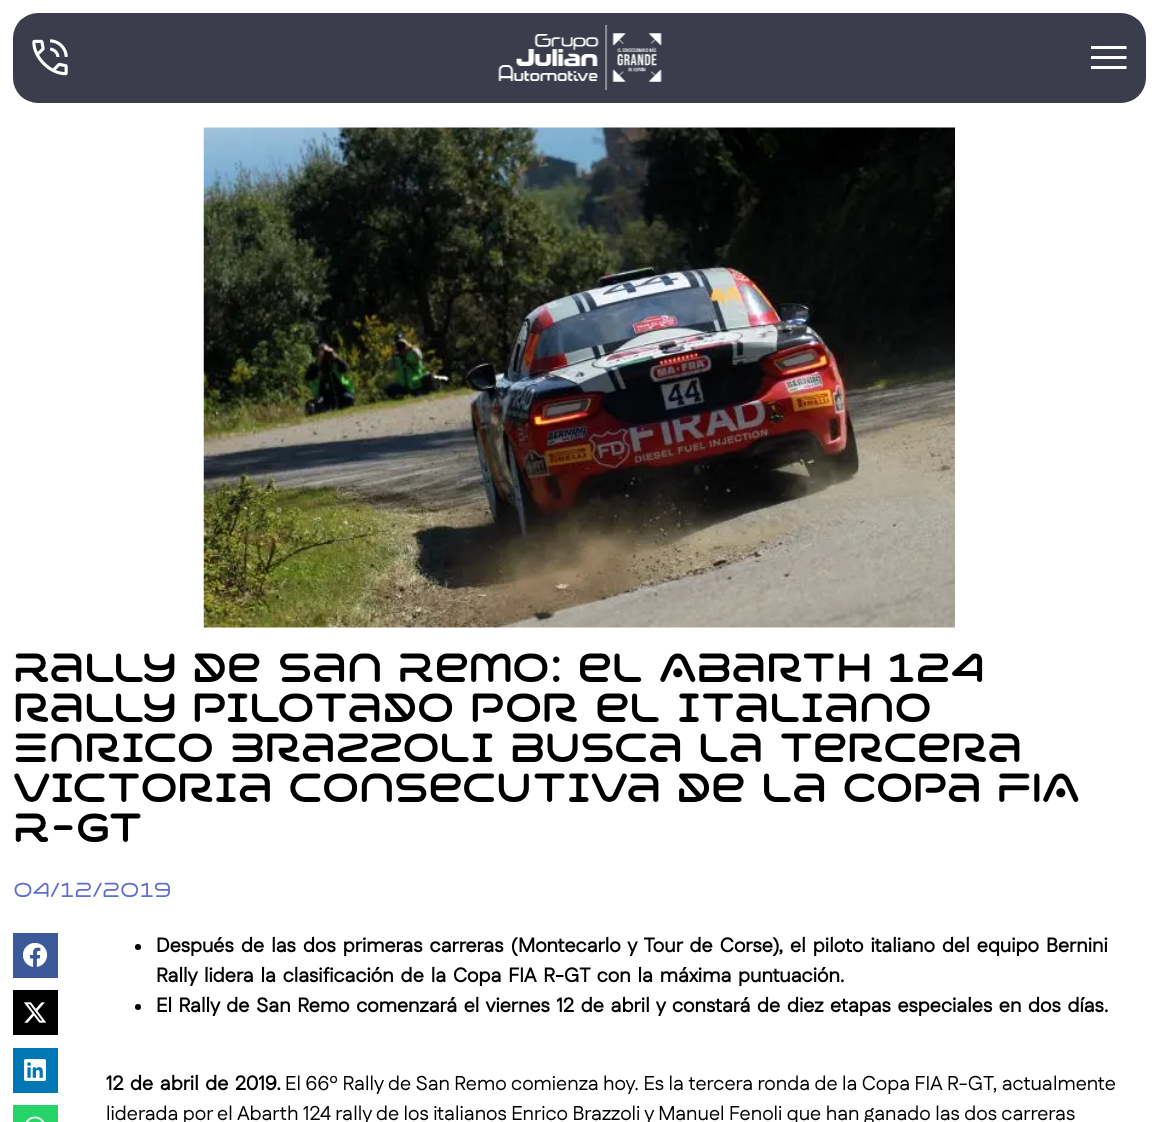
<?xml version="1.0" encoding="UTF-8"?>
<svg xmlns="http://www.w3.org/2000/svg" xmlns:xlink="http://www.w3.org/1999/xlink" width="1158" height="1122">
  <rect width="100%" height="100%" fill="#ffffff" />
  <rect x="13" y="13" width="1133" height="90" rx="25" fill="#3b3d4c" />
  <image x="32" y="39" width="36" height="37" xlink:href="image1.png" />
  <image x="498" y="25" width="164" height="65" xlink:href="image2.png" />
  <path d="M 1091 69 v -3 h 35.5 v 3 z m 0 -10 v -3 h 35.5 v 3 z m 0 -10 v -3 h 35.5 v 3 z" fill="#ffffff" />
  <image x="203" y="127" width="752" height="501" xlink:href="image3.png" />
  <rect x="13" y="933" width="45" height="45" fill="#3b5998" />
  <image x="23" y="943" width="25" height="24" xlink:href="image4.png" />
  <rect x="13" y="990" width="45" height="45" fill="#000000" />
  <image x="23" y="1002" width="24" height="21" xlink:href="image5.png" />
  <rect x="13" y="1048" width="45" height="45" fill="#0077b5" />
  <image x="24" y="1059" width="22" height="22" xlink:href="image6.png" />
  <rect x="13" y="1105" width="45" height="17" fill="#25d366" />
  <image x="25" y="1116" width="20" height="6" xlink:href="image7.png" />
  <circle cx="138" cy="947" r="3" fill="#000000" />
  <circle cx="138" cy="1007" r="3" fill="#000000" />
  <text x="13" y="682" style="font-family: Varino; font-size: 40px; fill: #000000">Rally de San Remo: el Abarth 124</text>
  <text x="13" y="722" style="font-family: Varino; font-size: 40px; fill: #000000">rally pilotado por el italiano</text>
  <text x="13" y="762" style="font-family: Varino; font-size: 40px; fill: #000000">Enrico Brazzoli busca la tercera</text>
  <text x="13" y="802" style="font-family: Varino; font-size: 40px; fill: #000000">victoria consecutiva de la Copa FIA</text>
  <text x="13" y="842" style="font-family: Varino; font-size: 40px; fill: #000000">R-GT</text>
  <text x="13" y="897" style="font-family: Varino; font-size: 20px; font-weight: 300; fill: #616ed1">04/12/2019</text>
  <text x="156" y="952" word-spacing="2.75" style="font-family: Fustat; font-size: 20px; font-weight: bold; fill: #000000">Después de las dos primeras carreras (Montecarlo y Tour de Corse), el piloto italiano del equipo Bernini</text>
  <text x="156" y="982" word-spacing="2.5" style="font-family: Fustat; font-size: 20px; font-weight: bold; fill: #000000">Rally lidera la clasificación de la Copa FIA R-GT con la máxima puntuación.</text>
  <text x="156" y="1012" word-spacing="2.25" style="font-family: Fustat; font-size: 20px; font-weight: bold; fill: #000000">El Rally de San Remo comenzará el viernes 12 de abril y constará de diez etapas especiales en dos días.</text>
  <text x="106" y="1090" word-spacing="2" style="font-family: Fustat; font-size: 20px; font-weight: bold; fill: #000000">12 de abril de 2019.</text>
  <text x="285" y="1090" style="font-family: Fustat; font-size: 20px; fill: #000000">El 66º Rally de San Remo comienza hoy. Es la tercera ronda de la Copa FIA R-GT, actualmente</text>
  <text x="106" y="1120" style="font-family: Fustat; font-size: 20px; fill: #000000">liderada por el Abarth 124 rally de los italianos Enrico Brazzoli y Manuel Fenoli que han ganado las dos carreras</text>
</svg>
